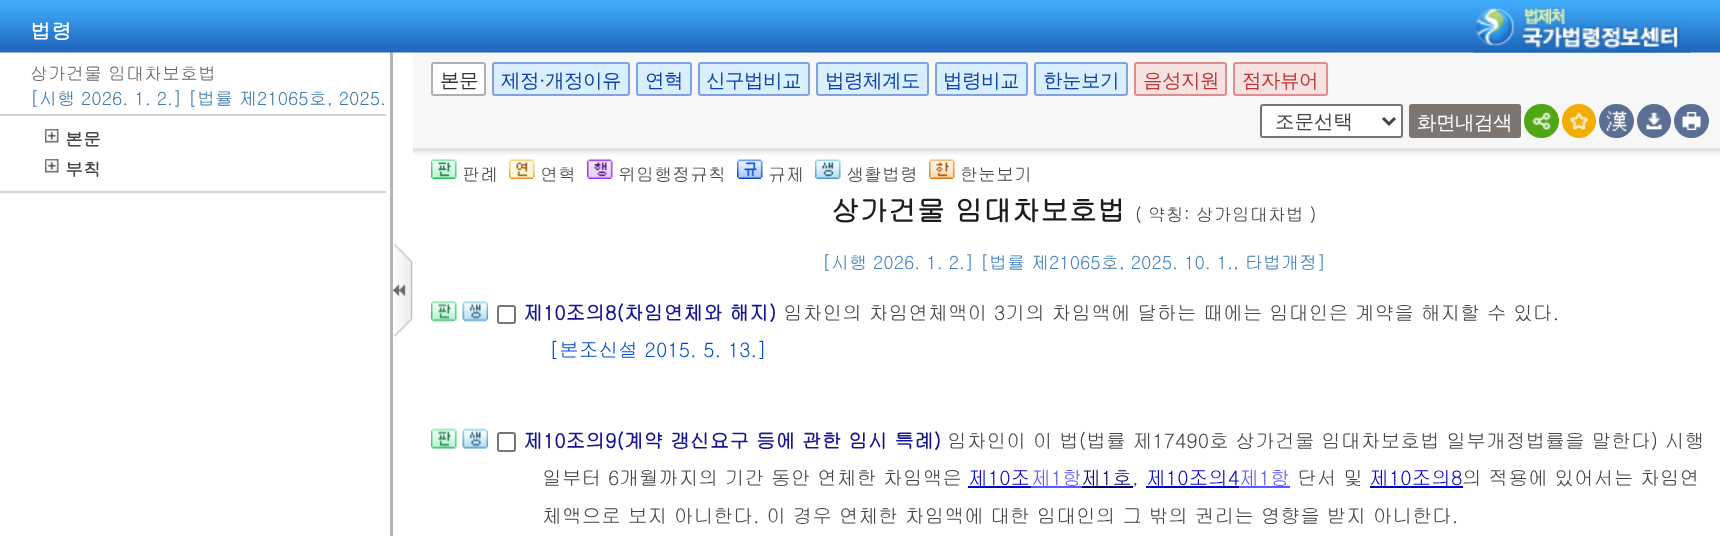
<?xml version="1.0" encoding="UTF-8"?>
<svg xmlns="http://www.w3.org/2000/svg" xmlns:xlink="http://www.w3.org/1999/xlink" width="1720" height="536">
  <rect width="100%" height="100%" fill="#ffffff" />
  <rect x="413" y="52" width="1307" height="103" fill="#f7f7f7" />
  <rect x="390" y="51" width="3" height="485" fill="#b4b4b4" />
  <image x="0" y="0" width="1720" height="53" xlink:href="image1.png" />
  <image x="1473" y="7" width="218" height="46" xlink:href="image2.png" />
  <rect y="191" width="386" height="2" fill="#d4d4d4" />
  <rect y="114" width="386" height="2" fill="#d4d4d4" />
  <image x="45" y="129" width="14" height="14" xlink:href="image3.png" />
  <image x="45" y="159" width="14" height="14" xlink:href="image3.png" />
  <image x="413" y="148" width="1307" height="6" xlink:href="image4.png" />
  <rect x="432" y="63" width="53" height="32" rx="2" fill="#ffffff" stroke="#afafaf" stroke-width="2" />
  <rect x="493" y="63" width="136" height="32" rx="2" fill="#d9effd" stroke="#81a2df" stroke-width="2" />
  <rect x="637" y="63" width="54" height="32" rx="2" fill="#d9effd" stroke="#81a2df" stroke-width="2" />
  <rect x="699" y="63" width="110" height="32" rx="2" fill="#d9effd" stroke="#81a2df" stroke-width="2" />
  <rect x="817" y="63" width="111" height="32" rx="2" fill="#d9effd" stroke="#81a2df" stroke-width="2" />
  <rect x="936" y="63" width="91" height="32" rx="2" fill="#d9effd" stroke="#81a2df" stroke-width="2" />
  <rect x="1035" y="63" width="92" height="32" rx="2" fill="#d9effd" stroke="#81a2df" stroke-width="2" />
  <rect x="1135" y="63" width="91" height="32" rx="2" fill="#f7e2e2" stroke="#e28d8d" stroke-width="2" />
  <rect x="1234" y="63" width="93" height="32" rx="2" fill="#f7e2e2" stroke="#e28d8d" stroke-width="2" />
  <rect x="1261" y="105" width="141" height="32" rx="2" fill="#ffffff" stroke="#767676" stroke-width="2" />
  <path d="M 1383 118 l 6 6 l 6 -6" fill="none" stroke="#444444" stroke-width="3" />
  <rect x="1410" y="105" width="110" height="32" rx="2" fill="#7b7671" stroke="#7b7671" stroke-width="2" />
  <rect x="1524" y="104" width="35" height="34" rx="17" fill="#4ea713" />
  <image x="1532" y="112" width="19" height="18" xlink:href="image5.png" />
  <circle cx="1579" cy="121" r="17" fill="#f3ac00" />
  <image x="1570" y="112" width="19" height="18" xlink:href="image6.png" />
  <rect x="1599" y="104" width="35" height="34" rx="17" fill="#5b6e93" />
  <image x="1606" y="111" width="21" height="20" xlink:href="image7.png" />
  <circle cx="1654" cy="121" r="17" fill="#5b6e93" />
  <image x="1646" y="112" width="16" height="18" xlink:href="image8.png" />
  <rect x="1674" y="104" width="35" height="34" rx="17" fill="#5b6e93" />
  <image x="1682" y="112" width="19" height="19" xlink:href="image9.png" />
  <image x="431" y="159" width="26" height="20" xlink:href="image10.png" />
  <image x="509" y="159" width="26" height="20" xlink:href="image11.png" />
  <image x="587" y="159" width="26" height="20" xlink:href="image12.png" />
  <image x="737" y="159" width="26" height="20" xlink:href="image13.png" />
  <image x="815" y="159" width="26" height="20" xlink:href="image14.png" />
  <image x="929" y="159" width="26" height="20" xlink:href="image15.png" />
  <image x="431" y="301" width="26" height="21" xlink:href="image16.png" />
  <image x="462" y="301" width="26" height="21" xlink:href="image17.png" />
  <rect x="498" y="306" width="17" height="17" rx="2" fill="none" stroke="#767676" stroke-width="2" />
  <image x="431" y="428" width="26" height="21" xlink:href="image18.png" />
  <image x="462" y="428" width="26" height="21" xlink:href="image19.png" />
  <rect x="498" y="433" width="17" height="18" rx="2" fill="none" stroke="#767676" stroke-width="2" />
  <rect x="968" y="486" width="63" height="2" fill="#0000cd" />
  <rect x="1031" y="486" width="51" height="2" fill="#5a5aff" />
  <rect x="1082" y="486" width="51" height="2" fill="#000069" />
  <rect x="1146" y="486" width="93" height="2" fill="#0000cd" />
  <rect x="1239" y="486" width="51" height="2" fill="#5a5aff" />
  <rect x="1370" y="486" width="93" height="2" fill="#0000cd" />
  <image x="393" y="244" width="20" height="93" xlink:href="image20.png" />
  <text x="30" y="39" style="font-family: Gulim; font-size: 21px; font-weight: bold; fill: #ffffff">법령</text>
  <text x="30" y="80" style="font-family: Gulim; font-size: 18px; fill: #666666">상가건물 임대차보호법</text>
  <text x="30" y="105" style="font-family: Gulim; font-size: 18px; fill: #3c7aac">[시행 2026. 1. 2.] [법률 제21065호, 2025.</text>
  <text x="65" y="146" style="font-family: Gulim; font-size: 18px; font-weight: bold; fill: #444444">본문</text>
  <text x="65" y="176" style="font-family: Gulim; font-size: 18px; font-weight: bold; fill: #444444">부칙</text>
  <text x="440" y="87" style="font-family: WenQuanYi Zen Hei; font-size: 19.5px; font-weight: 500; letter-spacing: -0.5px; fill: #333333">본문</text>
  <text x="501" y="87" style="font-family: WenQuanYi Zen Hei; font-size: 19.5px; font-weight: 500; letter-spacing: -0.5px; fill: #0d41ab">제정</text>
  <text x="539" y="87" style="font-family: Liberation Serif; font-size: 19.5px; letter-spacing: -0.5px; fill: #0d41ab">·</text>
  <text x="545" y="87" style="font-family: WenQuanYi Zen Hei; font-size: 19.5px; font-weight: 500; letter-spacing: -0.5px; fill: #0d41ab">개정이유</text>
  <text x="645" y="87" style="font-family: WenQuanYi Zen Hei; font-size: 19.5px; font-weight: 500; letter-spacing: -0.5px; fill: #0d41ab">연혁</text>
  <text x="706" y="87" style="font-family: WenQuanYi Zen Hei; font-size: 19.5px; font-weight: 500; letter-spacing: -0.5px; fill: #0d41ab">신구법비교</text>
  <text x="825" y="87" style="font-family: WenQuanYi Zen Hei; font-size: 19.5px; font-weight: 500; letter-spacing: -0.5px; fill: #0d41ab">법령체계도</text>
  <text x="943" y="87" style="font-family: WenQuanYi Zen Hei; font-size: 19.5px; font-weight: 500; letter-spacing: -0.5px; fill: #0d41ab">법령비교</text>
  <text x="1043" y="87" style="font-family: WenQuanYi Zen Hei; font-size: 19.5px; font-weight: 500; letter-spacing: -0.5px; fill: #0d41ab">한눈보기</text>
  <text x="1143" y="87" style="font-family: WenQuanYi Zen Hei; font-size: 19.5px; font-weight: 500; letter-spacing: -0.5px; fill: #c13535">음성지원</text>
  <text x="1242" y="87" style="font-family: WenQuanYi Zen Hei; font-size: 19.5px; font-weight: 500; letter-spacing: -0.5px; fill: #c13535">점자뷰어</text>
  <text x="1275" y="128" style="font-family: WenQuanYi Zen Hei; font-size: 19.5px; font-weight: 500; fill: #444444">조문선택</text>
  <text x="1417" y="129" style="font-family: WenQuanYi Zen Hei; font-size: 19.5px; font-weight: 500; letter-spacing: -0.5px; fill: #ffffff">화면내검색</text>
  <text x="462" y="181" style="font-family: Gulim; font-size: 18px; fill: #444444">판례</text>
  <text x="540" y="181" style="font-family: Gulim; font-size: 18px; fill: #444444">연혁</text>
  <text x="618" y="181" style="font-family: Gulim; font-size: 18px; fill: #444444">위임행정규칙</text>
  <text x="768" y="181" style="font-family: Gulim; font-size: 18px; fill: #444444">규제</text>
  <text x="846" y="181" style="font-family: Gulim; font-size: 18px; fill: #444444">생활법령</text>
  <text x="960" y="181" style="font-family: Gulim; font-size: 18px; fill: #444444">한눈보기</text>
  <text x="831" y="221" style="font-family: Gulim; font-size: 28.5px; font-weight: bold; fill: #1c1c1c">상가건물 임대차보호법</text>
  <text x="1135" y="221" style="font-family: Gulim; font-size: 18px; fill: #444444">( 약칭: 상가임대차법 )</text>
  <text x="822" y="269" style="font-family: Gulim; font-size: 18px; fill: #3c7fbc">[시행 2026. 1. 2.] [법률 제21065호, 2025. 10. 1., 타법개정]</text>
  <text x="523" y="320" style="font-family: Gulim; font-size: 19.8px; font-weight: bold; fill: #151594">제10조의8(차임연체와 해지)</text>
  <text x="783" y="320" style="font-family: Gulim; font-size: 19.8px; fill: #444444">임차인의 차임연체액이 3기의 차임액에 달하는 때에는 임대인은 계약을 해지할 수 있다.</text>
  <text x="549" y="357" style="font-family: Gulim; font-size: 19.8px; fill: #024fce">[본조신설 2015. 5. 13.]</text>
  <text x="523" y="448" style="font-family: Gulim; font-size: 19.8px; font-weight: bold; fill: #151594">제10조의9(계약 갱신요구 등에 관한 임시 특례)</text>
  <text x="947" y="448" style="font-family: Gulim; font-size: 19.8px; fill: #444444">임차인이 이 법(법률 제17490호 상가건물 임대차보호법 일부개정법률을 말한다) 시행</text>
  <text x="542" y="485" style="font-family: Gulim; font-size: 19.8px; fill: #444444">일부터 6개월까지의 기간 동안 연체한 차임액은</text>
  <text x="968" y="485" style="font-family: Gulim; font-size: 19.8px; fill: #0000cd">제10조</text>
  <text x="1031" y="485" style="font-family: Gulim; font-size: 19.8px; fill: #5a5aff">제1항</text>
  <text x="1081" y="485" style="font-family: Gulim; font-size: 19.8px; fill: #000069">제1호</text>
  <text x="1132" y="485" style="font-family: Gulim; font-size: 19.8px; fill: #444444">,</text>
  <text x="1146" y="485" style="font-family: Gulim; font-size: 19.8px; fill: #0000cd">제10조의4</text>
  <text x="1239" y="485" style="font-family: Gulim; font-size: 19.8px; fill: #5a5aff">제1항</text>
  <text x="1297" y="485" style="font-family: Gulim; font-size: 19.8px; fill: #444444">단서 및</text>
  <text x="1369" y="485" style="font-family: Gulim; font-size: 19.8px; fill: #0000cd">제10조의8</text>
  <text x="1462" y="485" style="font-family: Gulim; font-size: 19.8px; fill: #444444">의 적용에 있어서는 차임연</text>
  <text x="542" y="523" style="font-family: Gulim; font-size: 19.8px; fill: #444444">체액으로 보지 아니한다. 이 경우 연체한 차임액에 대한 임대인의 그 밖의 권리는 영향을 받지 아니한다.</text>
</svg>
